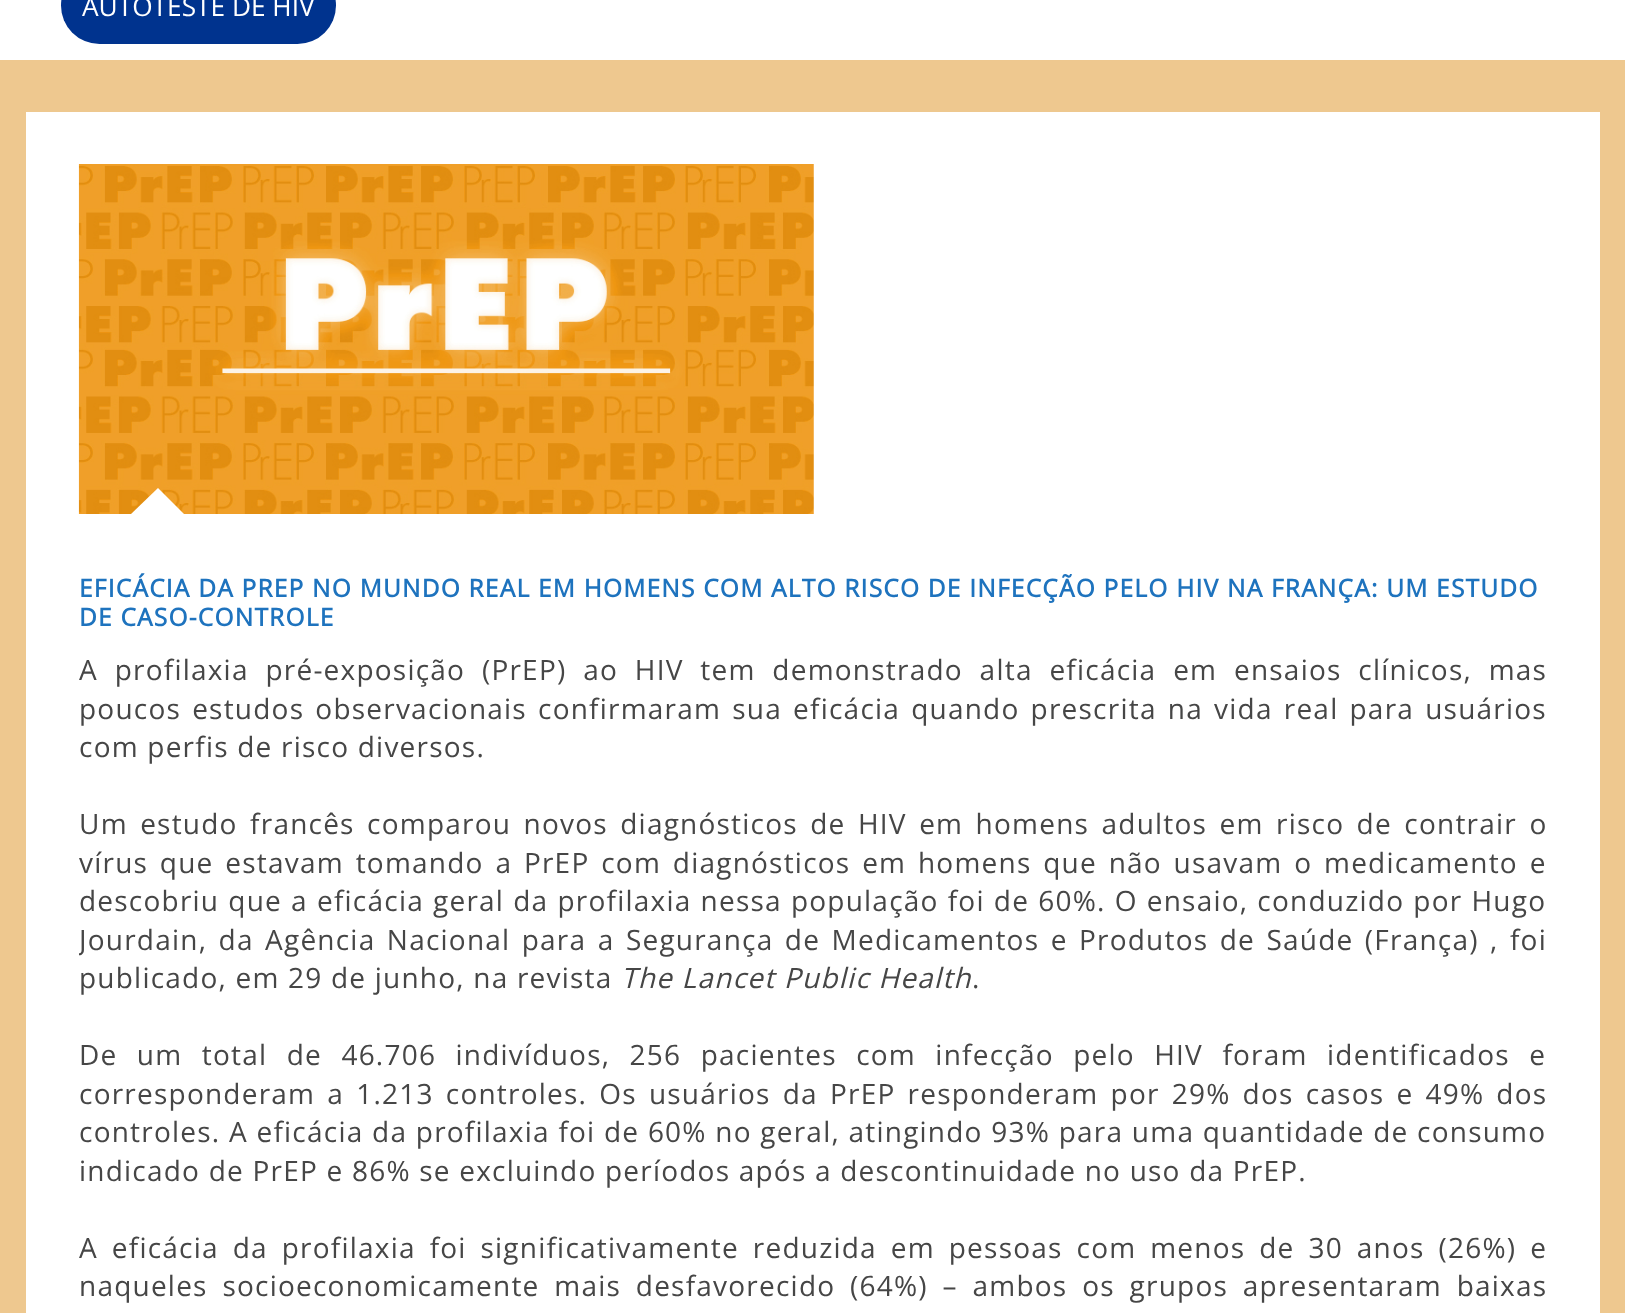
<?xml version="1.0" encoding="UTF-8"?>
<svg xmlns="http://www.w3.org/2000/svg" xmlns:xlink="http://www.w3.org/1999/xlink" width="1625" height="1313">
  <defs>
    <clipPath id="clip1"><rect x="79" y="651" width="1468" height="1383" /></clipPath>
  </defs>
  <rect width="100%" height="100%" fill="#eec88f" />
  <rect width="1625" height="60" fill="#ffffff" />
  <rect x="61" y="-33" width="275" height="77" rx="38.5" fill="#00338e" />
  <rect x="26" y="112" width="1574" height="1201" fill="#ffffff" />
  <image x="78" y="164" width="736" height="350" xlink:href="image1.png" />
  <path d="M 184 514 h -53 l 27 -26 z" fill="#ffffff" />
  <text x="82" y="16" style="font-family: Open Sans; font-size: 26.25px; fill: #ffffff">AUTOTESTE DE HIV</text>
  <text x="79" y="597" style="font-family: Open Sans; font-size: 24.5px; font-weight: bold; letter-spacing: 1.22px; fill: #1e73be">EFICÁCIA DA PREP NO MUNDO REAL EM HOMENS COM ALTO RISCO DE INFECÇÃO PELO HIV NA FRANÇA: UM ESTUDO</text>
  <text x="79" y="626" style="font-family: Open Sans; font-size: 24.5px; font-weight: bold; letter-spacing: 1.22px; fill: #1e73be">DE CASO-CONTROLE</text>
  <text x="79" y="680" word-spacing="8.25" style="font-family: Open Sans; font-size: 28px; letter-spacing: 1.22px; fill: #464646">A profilaxia pré-exposição (PrEP) ao HIV tem demonstrado alta eficácia em ensaios clínicos, mas</text>
  <text x="79" y="719" word-spacing="2.6" style="font-family: Open Sans; font-size: 28px; letter-spacing: 1.22px; fill: #464646">poucos estudos observacionais confirmaram sua eficácia quando prescrita na vida real para usuários</text>
  <text x="79" y="757" style="font-family: Open Sans; font-size: 28px; letter-spacing: 1.22px; fill: #464646">com perfis de risco diversos.</text>
  <text x="79" y="834" word-spacing="3.9" style="font-family: Open Sans; font-size: 28px; letter-spacing: 1.22px; fill: #464646">Um estudo francês comparou novos diagnósticos de HIV em homens adultos em risco de contrair o</text>
  <text x="79" y="873" word-spacing="3.25" style="font-family: Open Sans; font-size: 28px; letter-spacing: 1.22px; fill: #464646">vírus que estavam tomando a PrEP com diagnósticos em homens que não usavam o medicamento e</text>
  <text x="79" y="911" word-spacing="0.6" style="font-family: Open Sans; font-size: 28px; letter-spacing: 1.22px; fill: #464646">descobriu que a eficácia geral da profilaxia nessa população foi de 60%. O ensaio, conduzido por Hugo</text>
  <g clip-path="url(#clip1)">
    <text x="79" y="950" word-spacing="2.9" style="font-family: Open Sans; font-size: 28px; letter-spacing: 1.22px; fill: #464646">Jourdain, da Agência Nacional para a Segurança de Medicamentos e Produtos de Saúde (França) , foi</text>
  </g>
  <text x="79" y="988" style="font-family: Open Sans; font-size: 28px; letter-spacing: 1.22px; fill: #464646">publicado, em 29 de junho, na revista</text>
  <text x="621" y="988" style="font-family: Open Sans; font-size: 28px; font-style: italic; letter-spacing: 1.22px; fill: #464646">The Lancet Public Health</text>
  <text x="972" y="988" style="font-family: Open Sans; font-size: 28px; letter-spacing: 1.22px; fill: #464646">.</text>
  <text x="79" y="1065" word-spacing="10.9" style="font-family: Open Sans; font-size: 28px; letter-spacing: 1.22px; fill: #464646">De um total de 46.706 indivíduos, 256 pacientes com infecção pelo HIV foram identificados e</text>
  <text x="79" y="1104" word-spacing="3.6" style="font-family: Open Sans; font-size: 28px; letter-spacing: 1.22px; fill: #464646">corresponderam a 1.213 controles. Os usuários da PrEP responderam por 29% dos casos e 49% dos</text>
  <text x="79" y="1142" word-spacing="0.1" style="font-family: Open Sans; font-size: 28px; letter-spacing: 1.22px; fill: #464646">controles. A eficácia da profilaxia foi de 60% no geral, atingindo 93% para uma quantidade de consumo</text>
  <text x="79" y="1181" style="font-family: Open Sans; font-size: 28px; letter-spacing: 1.22px; fill: #464646">indicado de PrEP e 86% se excluindo períodos após a descontinuidade no uso da PrEP.</text>
  <text x="79" y="1258" word-spacing="5.4" style="font-family: Open Sans; font-size: 28px; letter-spacing: 1.22px; fill: #464646">A eficácia da profilaxia foi significativamente reduzida em pessoas com menos de 30 anos (26%) e</text>
  <text x="79" y="1296" word-spacing="6.25" style="font-family: Open Sans; font-size: 28px; letter-spacing: 1.22px; fill: #464646">naqueles socioeconomicamente mais desfavorecido (64%) – ambos os grupos apresentaram baixas</text>
</svg>
